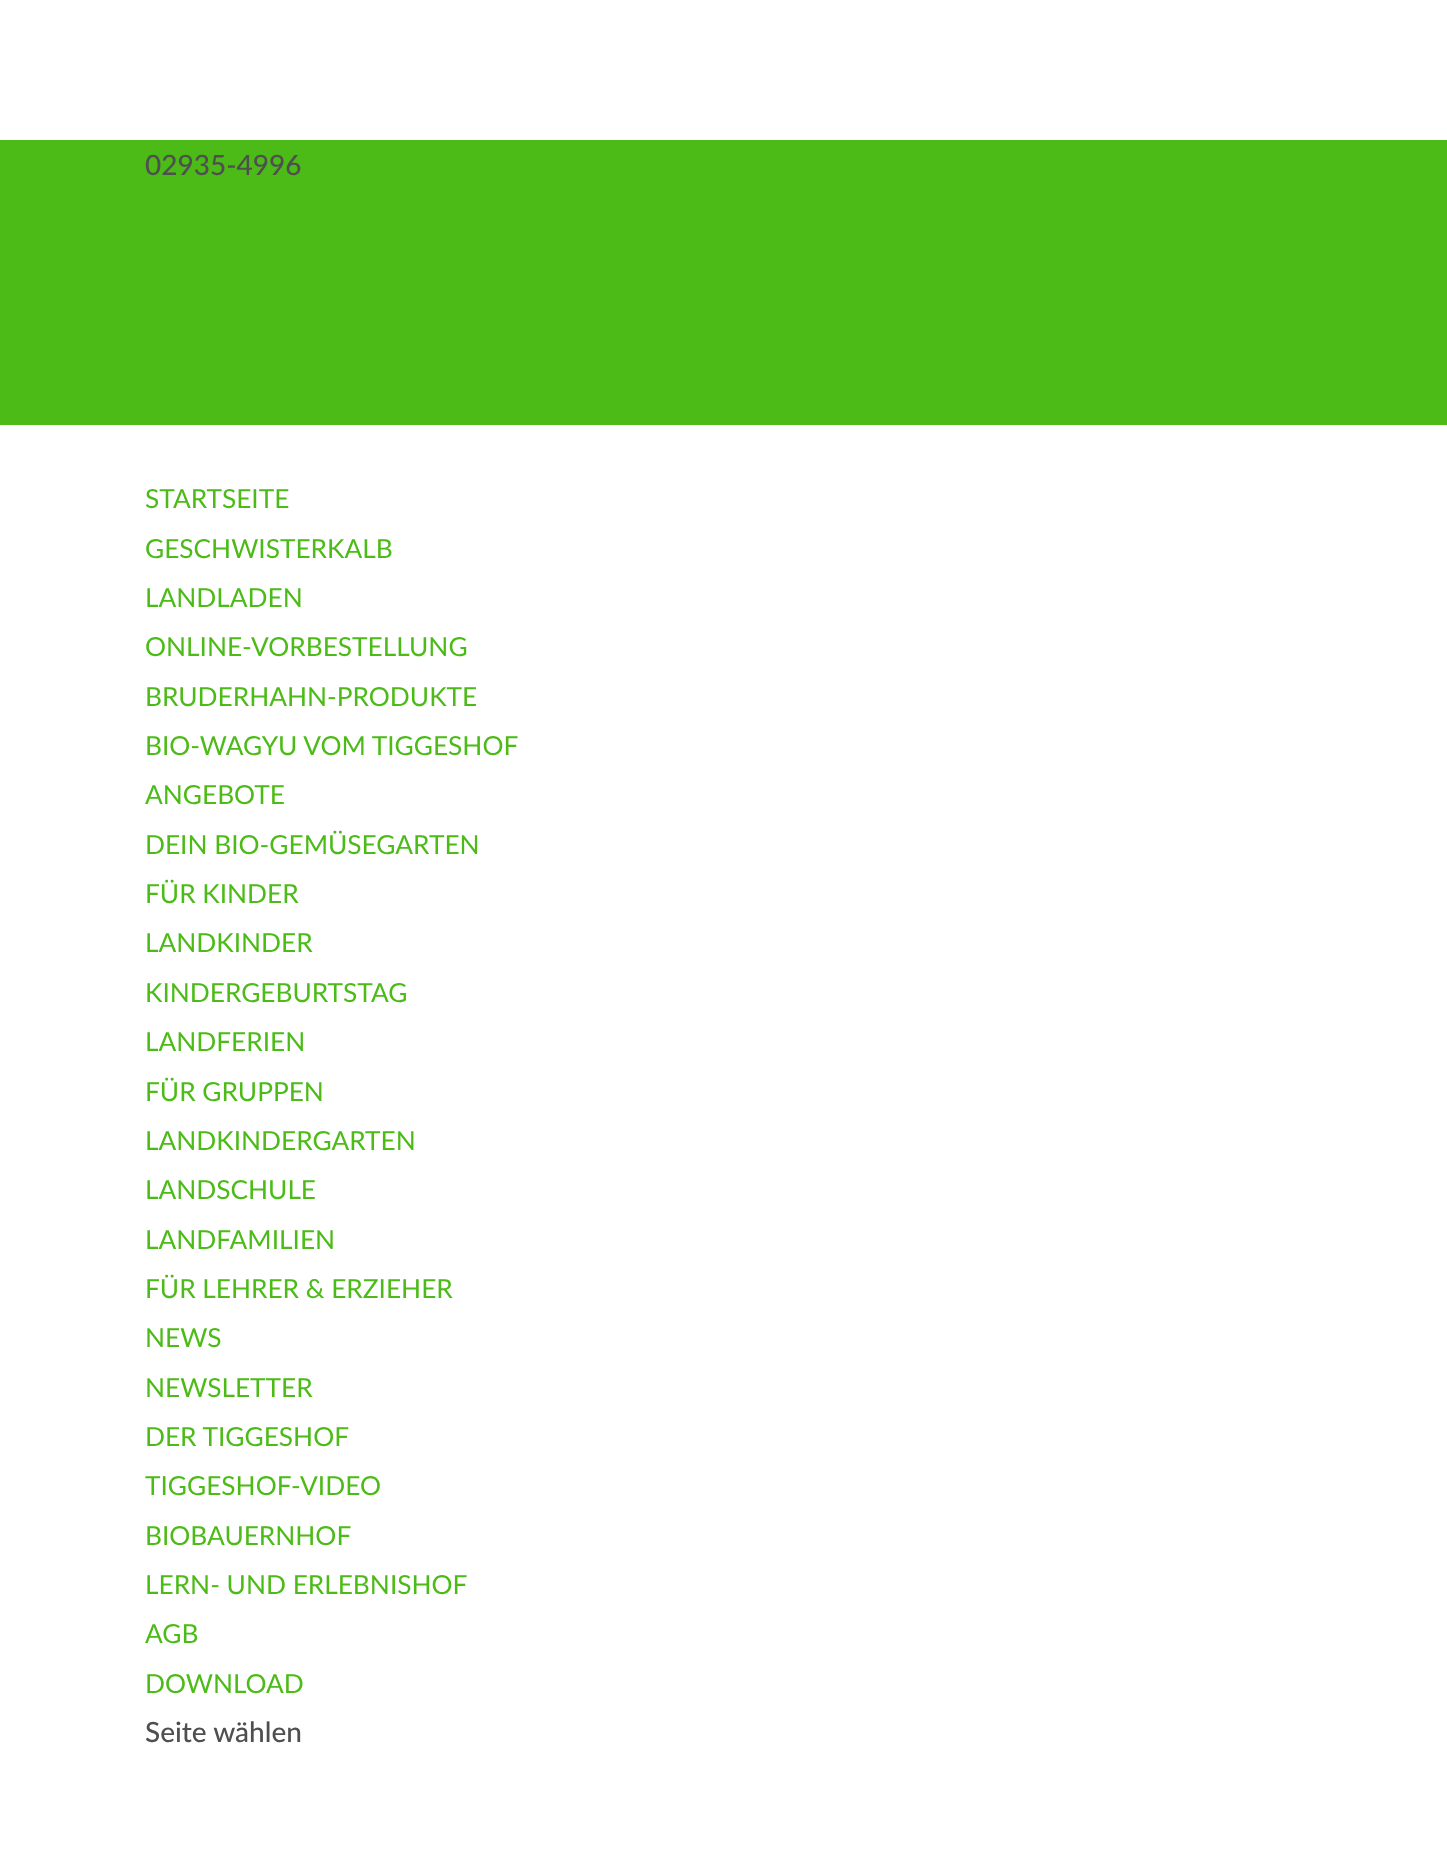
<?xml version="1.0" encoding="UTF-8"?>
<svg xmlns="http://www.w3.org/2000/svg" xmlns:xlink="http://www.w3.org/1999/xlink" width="1447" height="1849">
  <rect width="100%" height="100%" fill="#ffffff" />
  <rect y="140" width="1447" height="285" fill="#4cbb17" />
  <text x="145" y="175" style="font-family: Lato; font-size: 28px; font-weight: 500; fill: #4f4f4f">02935-4996</text>
  <text x="145" y="508" style="font-family: Lato; font-size: 26.25px; fill: #4cbb17">STARTSEITE</text>
  <text x="145" y="558" style="font-family: Lato; font-size: 26.25px; fill: #4cbb17">GESCHWISTERKALB</text>
  <text x="145" y="607" style="font-family: Lato; font-size: 26.25px; fill: #4cbb17">LANDLADEN</text>
  <text x="145" y="656" style="font-family: Lato; font-size: 26.25px; fill: #4cbb17">ONLINE-VORBESTELLUNG</text>
  <text x="145" y="706" style="font-family: Lato; font-size: 26.25px; fill: #4cbb17">BRUDERHAHN-PRODUKTE</text>
  <text x="145" y="755" style="font-family: Lato; font-size: 26.25px; fill: #4cbb17">BIO-WAGYU VOM TIGGESHOF</text>
  <text x="145" y="804" style="font-family: Lato; font-size: 26.25px; fill: #4cbb17">ANGEBOTE</text>
  <text x="145" y="854" style="font-family: Lato; font-size: 26.25px; fill: #4cbb17">DEIN BIO-GEMÜSEGARTEN</text>
  <text x="145" y="903" style="font-family: Lato; font-size: 26.25px; fill: #4cbb17">FÜR KINDER</text>
  <text x="145" y="952" style="font-family: Lato; font-size: 26.25px; fill: #4cbb17">LANDKINDER</text>
  <text x="145" y="1002" style="font-family: Lato; font-size: 26.25px; fill: #4cbb17">KINDERGEBURTSTAG</text>
  <text x="145" y="1051" style="font-family: Lato; font-size: 26.25px; fill: #4cbb17">LANDFERIEN</text>
  <text x="145" y="1101" style="font-family: Lato; font-size: 26.25px; fill: #4cbb17">FÜR GRUPPEN</text>
  <text x="145" y="1150" style="font-family: Lato; font-size: 26.25px; fill: #4cbb17">LANDKINDERGARTEN</text>
  <text x="145" y="1199" style="font-family: Lato; font-size: 26.25px; fill: #4cbb17">LANDSCHULE</text>
  <text x="145" y="1249" style="font-family: Lato; font-size: 26.25px; fill: #4cbb17">LANDFAMILIEN</text>
  <text x="145" y="1298" style="font-family: Lato; font-size: 26.25px; fill: #4cbb17">FÜR LEHRER &amp; ERZIEHER</text>
  <text x="145" y="1347" style="font-family: Lato; font-size: 26.25px; fill: #4cbb17">NEWS</text>
  <text x="145" y="1397" style="font-family: Lato; font-size: 26.25px; fill: #4cbb17">NEWSLETTER</text>
  <text x="145" y="1446" style="font-family: Lato; font-size: 26.25px; fill: #4cbb17">DER TIGGESHOF</text>
  <text x="145" y="1495" style="font-family: Lato; font-size: 26.25px; fill: #4cbb17">TIGGESHOF-VIDEO</text>
  <text x="145" y="1545" style="font-family: Lato; font-size: 26.25px; fill: #4cbb17">BIOBAUERNHOF</text>
  <text x="145" y="1594" style="font-family: Lato; font-size: 26.25px; fill: #4cbb17">LERN- UND ERLEBNISHOF</text>
  <text x="145" y="1643" style="font-family: Lato; font-size: 26.25px; fill: #4cbb17">AGB</text>
  <text x="145" y="1693" style="font-family: Lato; font-size: 26.25px; fill: #4cbb17">DOWNLOAD</text>
  <text x="145" y="1742" style="font-family: Lato; font-size: 28px; font-weight: 500; fill: #4f4f4f">Seite wählen</text>
</svg>
